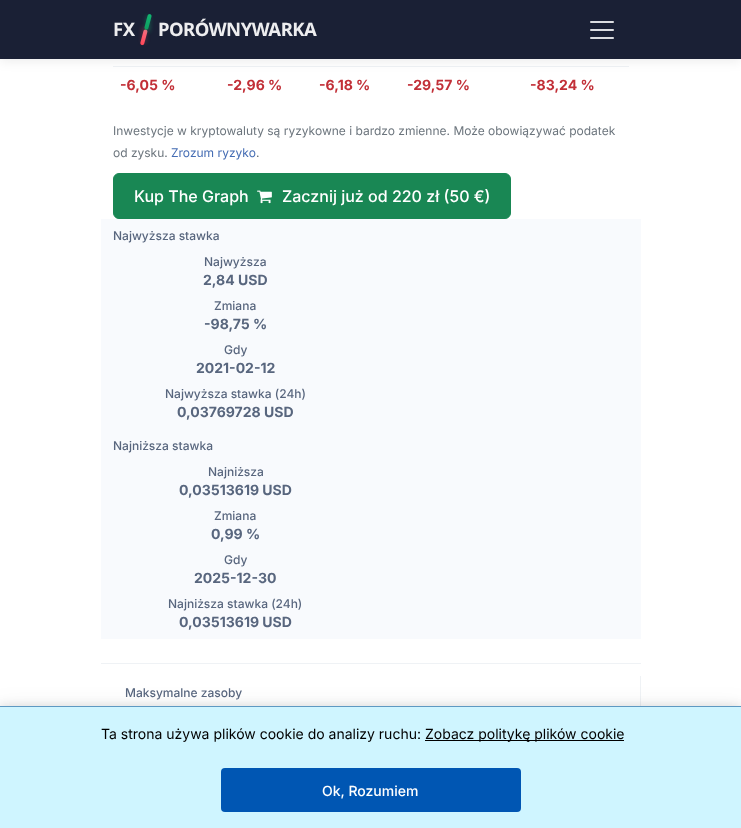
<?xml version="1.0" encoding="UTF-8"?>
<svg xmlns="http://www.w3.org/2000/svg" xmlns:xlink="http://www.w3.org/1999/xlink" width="741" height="828">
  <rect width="100%" height="100%" fill="#ffffff" />
  <rect x="113" y="66" width="516" height="1" fill="#eff2f5" />
  <rect y="2" width="741" height="59" fill="#000000" fill-opacity="0.08" filter="blur(6px)" />
  <rect width="741" height="59" fill="#1a2035" />
  <rect x="142" y="27" width="4" height="16" rx="2" fill="#ff4757" fill-opacity="0.3" filter="blur(2px)" />
  <image x="140" y="29" width="8" height="17" xlink:href="image2.png" />
  <rect x="146" y="16" width="4" height="16" rx="2" fill="#12b571" fill-opacity="0.4" filter="blur(2px)" />
  <image x="144" y="14" width="8" height="16" xlink:href="image1.png" />
  <image x="590" y="21" width="24" height="18" xlink:href="image3.png" />
  <rect x="113.5" y="173.5" width="397" height="45" rx="5.5" fill="#198754" stroke="#198754" />
  <image x="257" y="190" width="15" height="14" xlink:href="image4.png" />
  <rect x="101" y="219" width="540" height="420" fill="#f8fafd" />
  <rect x="101" y="663" width="540" height="1" fill="#eff2f5" />
  <rect x="640" y="676" width="1" height="30" fill="#eff2f5" />
  <rect x="-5" y="716" width="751" height="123" fill="#000000" fill-opacity="0.12" filter="blur(15px)" />
  <rect y="705" width="741" height="122" fill="#000000" fill-opacity="0.1" filter="blur(5px)" />
  <rect y="707" width="741" height="121" fill="#cff5ff" />
  <rect y="706" width="741" height="1" fill="#5e99c2" />
  <rect x="425" y="740" width="199" height="1" fill="#000000" />
  <rect x="221" y="768" width="300" height="44" rx="4" fill="#0056b3" />
  <text x="113" y="36" style="font-family: Noto Sans; font-size: 18.5px; font-weight: bold; letter-spacing: -0.5px; fill: #ededef">FX</text>
  <text x="158" y="36" style="font-family: Noto Sans; font-size: 18.5px; font-weight: bold; letter-spacing: -0.5px; fill: #ededef">PORÓWNYWARKA</text>
  <text x="120" y="90" style="font-family: Inter; font-size: 14px; font-weight: bold; fill: #c22f37">-6,05 %</text>
  <text x="227" y="90" style="font-family: Inter; font-size: 14px; font-weight: bold; fill: #c22f37">-2,96 %</text>
  <text x="319" y="90" style="font-family: Inter; font-size: 14px; font-weight: bold; fill: #c22f37">-6,18 %</text>
  <text x="407" y="90" style="font-family: Inter; font-size: 14px; font-weight: bold; fill: #c22f37">-29,57 %</text>
  <text x="530" y="90" style="font-family: Inter; font-size: 14px; font-weight: bold; fill: #c22f37">-83,24 %</text>
  <text x="113" y="135" style="font-family: Inter; font-size: 12px; fill: #6c757d">Inwestycje w kryptowaluty są ryzykowne i bardzo zmienne. Może obowiązywać podatek</text>
  <text x="113" y="157" style="font-family: Inter; font-size: 12px; fill: #6c757d">od zysku.</text>
  <text x="171" y="157" style="font-family: Inter; font-size: 12px; fill: #446cb3">Zrozum ryzyko</text>
  <text x="256" y="157" style="font-family: Inter; font-size: 12px; fill: #6c757d">.</text>
  <text x="134" y="202" style="font-family: Inter; font-size: 16px; font-weight: 500; fill: #ffffff">Kup The Graph</text>
  <text x="282" y="202" style="font-family: Inter; font-size: 16px; font-weight: 500; fill: #ffffff">Zacznij już od 220 zł (50 €)</text>
  <text x="113" y="240" style="font-family: Inter; font-size: 12px; font-weight: 500; fill: #58667e">Najwyższa stawka</text>
  <text x="204" y="266" style="font-family: Inter; font-size: 12px; font-weight: 500; fill: #58667e">Najwyższa</text>
  <text x="203" y="285" style="font-family: Inter; font-size: 14px; font-weight: bold; fill: #58667e">2,84 USD</text>
  <text x="214" y="310" style="font-family: Inter; font-size: 12px; font-weight: 500; fill: #58667e">Zmiana</text>
  <text x="204" y="329" style="font-family: Inter; font-size: 14px; font-weight: bold; fill: #58667e">-98,75 %</text>
  <text x="224" y="354" style="font-family: Inter; font-size: 12px; font-weight: 500; fill: #58667e">Gdy</text>
  <text x="196" y="373" style="font-family: Inter; font-size: 14px; font-weight: bold; fill: #58667e">2021-02-12</text>
  <text x="165" y="398" style="font-family: Inter; font-size: 12px; font-weight: 500; fill: #58667e">Najwyższa stawka (24h)</text>
  <text x="177" y="417" style="font-family: Inter; font-size: 14px; font-weight: bold; fill: #58667e">0,03769728 USD</text>
  <text x="113" y="450" style="font-family: Inter; font-size: 12px; font-weight: 500; fill: #58667e">Najniższa stawka</text>
  <text x="208" y="476" style="font-family: Inter; font-size: 12px; font-weight: 500; fill: #58667e">Najniższa</text>
  <text x="179" y="495" style="font-family: Inter; font-size: 14px; font-weight: bold; fill: #58667e">0,03513619 USD</text>
  <text x="214" y="520" style="font-family: Inter; font-size: 12px; font-weight: 500; fill: #58667e">Zmiana</text>
  <text x="211" y="539" style="font-family: Inter; font-size: 14px; font-weight: bold; fill: #58667e">0,99 %</text>
  <text x="224" y="564" style="font-family: Inter; font-size: 12px; font-weight: 500; fill: #58667e">Gdy</text>
  <text x="194" y="583" style="font-family: Inter; font-size: 14px; font-weight: bold; fill: #58667e">2025-12-30</text>
  <text x="168" y="608" style="font-family: Inter; font-size: 12px; font-weight: 500; fill: #58667e">Najniższa stawka (24h)</text>
  <text x="179" y="627" style="font-family: Inter; font-size: 14px; font-weight: bold; fill: #58667e">0,03513619 USD</text>
  <text x="125" y="697" style="font-family: Inter; font-size: 12px; font-weight: 500; fill: #58667e">Maksymalne zasoby</text>
  <text x="101" y="739" style="font-family: Inter; font-size: 14px; fill: #000000">Ta strona używa plików cookie do analizy ruchu:</text>
  <text x="425" y="739" style="font-family: Inter; font-size: 14px; fill: #000000">Zobacz politykę plików cookie</text>
  <text x="322" y="796" style="font-family: Inter; font-size: 14px; font-weight: 500; fill: #ffffff">Ok, Rozumiem</text>
</svg>
